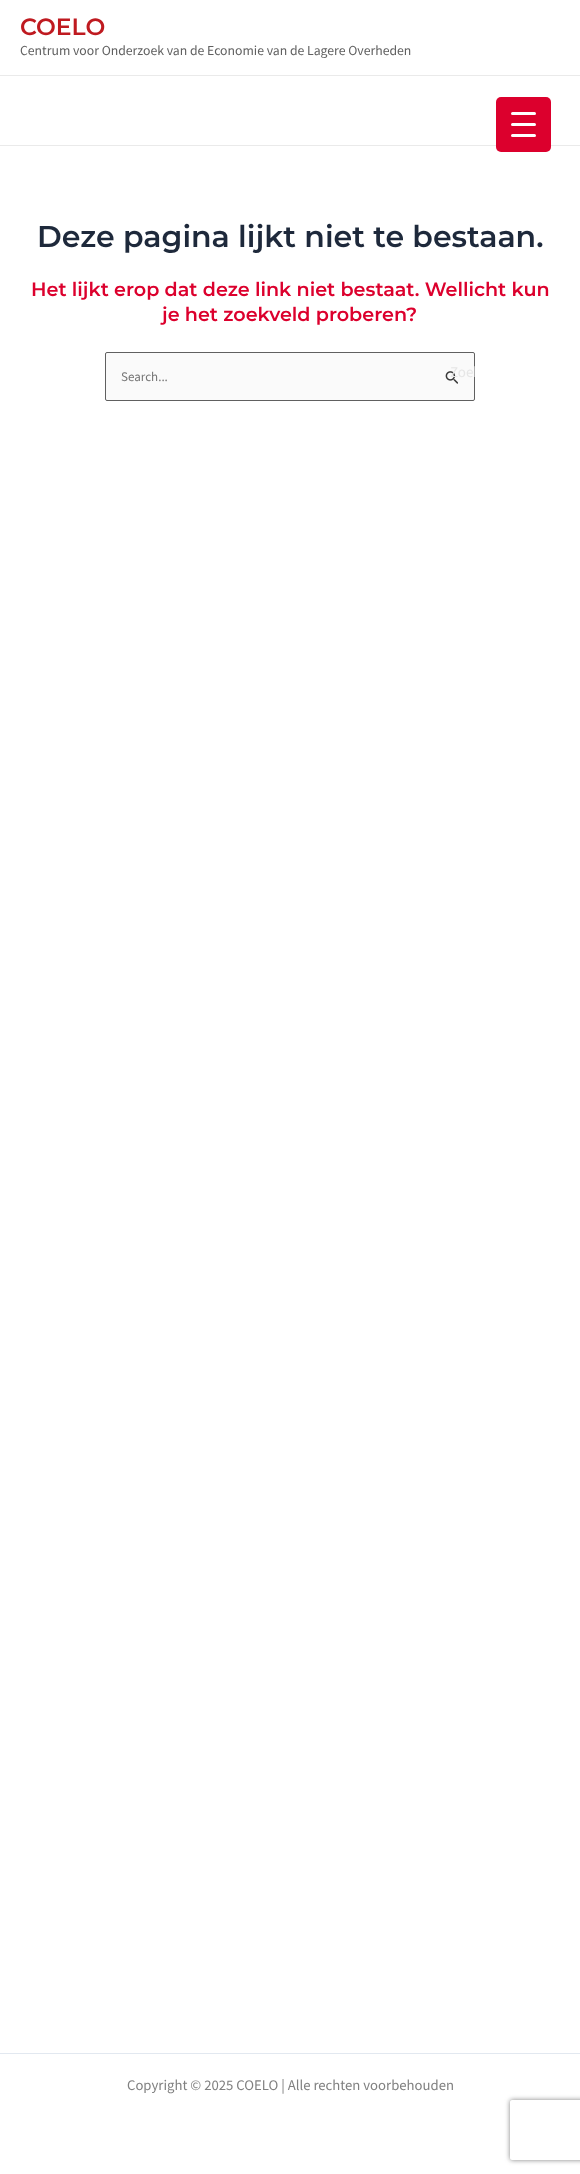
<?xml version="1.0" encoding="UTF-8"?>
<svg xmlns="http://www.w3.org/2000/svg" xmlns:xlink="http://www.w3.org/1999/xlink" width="580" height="2174">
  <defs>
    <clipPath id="clip1"><path d="M 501 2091 h 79 v 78 h -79 z m 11 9 h 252 c 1 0 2 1 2 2 v 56 c 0 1 -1 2 -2 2 h -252 c -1 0 -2 -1 -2 -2 v -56 c 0 -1 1 -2 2 -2 z" clip-rule="evenodd" /></clipPath>
    <clipPath id="clip2"><rect x="430" y="352" width="45" height="41" rx="2" /></clipPath>
  </defs>
  <rect width="100%" height="100%" fill="#ffffff" />
  <rect y="75" width="580" height="1" fill="#eaeaea" />
  <rect y="145" width="580" height="1" fill="#eaeaea" />
  <rect x="105.5" y="352.5" width="369" height="48" rx="1.5" fill="#fafafa" stroke="#606060" />
  <image x="445" y="371" width="13" height="13" xlink:href="image1.png" />
  <rect y="2053" width="580" height="1" fill="#e2e8f0" />
  <rect x="496" y="97" width="55" height="55" rx="5" fill="#dc002d" />
  <rect x="511" y="123" width="25" height="3" rx="1.5" fill="#ffffff" />
  <rect x="511" y="112" width="25" height="3" rx="1.5" fill="#ffffff" />
  <rect x="511" y="134" width="25" height="3" rx="1.5" fill="#ffffff" />
  <g clip-path="url(#clip1)">
    <rect x="510" y="2100" width="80" height="60" rx="2" fill="#808080" filter="blur(2.5px)" />
  </g>
  <text x="20" y="35" style="font-family: Montserrat; font-size: 23.5px; font-weight: 600; fill: #bf1a20">COELO</text>
  <text x="20" y="55" style="font-family: Source Sans Pro; font-size: 13.7px; fill: #606060">Centrum voor Onderzoek van de Economie van de Lagere Overheden</text>
  <text x="37" y="247" style="font-family: Montserrat; font-size: 30px; font-weight: 600; fill: #1e293b">Deze pagina lijkt niet te bestaan.</text>
  <text x="31" y="296" style="font-family: Montserrat; font-size: 19.15px; font-weight: 600; fill: #dc002d">Het lijkt erop dat deze link niet bestaat. Wellicht kun</text>
  <text x="162" y="321" style="font-family: Montserrat; font-size: 19.15px; font-weight: 600; fill: #dc002d">je het zoekveld proberen?</text>
  <text x="121" y="381" style="font-family: Source Sans Pro; font-size: 13px; fill: #757575">Search...</text>
  <g clip-path="url(#clip2)">
    <text x="450" y="377" style="font-family: Source Sans Pro; font-size: 15px; fill: #e6e6e6">Zoek</text>
  </g>
  <text x="127" y="2090" style="font-family: Source Sans Pro; font-size: 14.7px; fill: #808080">Copyright © 2025 COELO | Alle rechten voorbehouden</text>
</svg>
